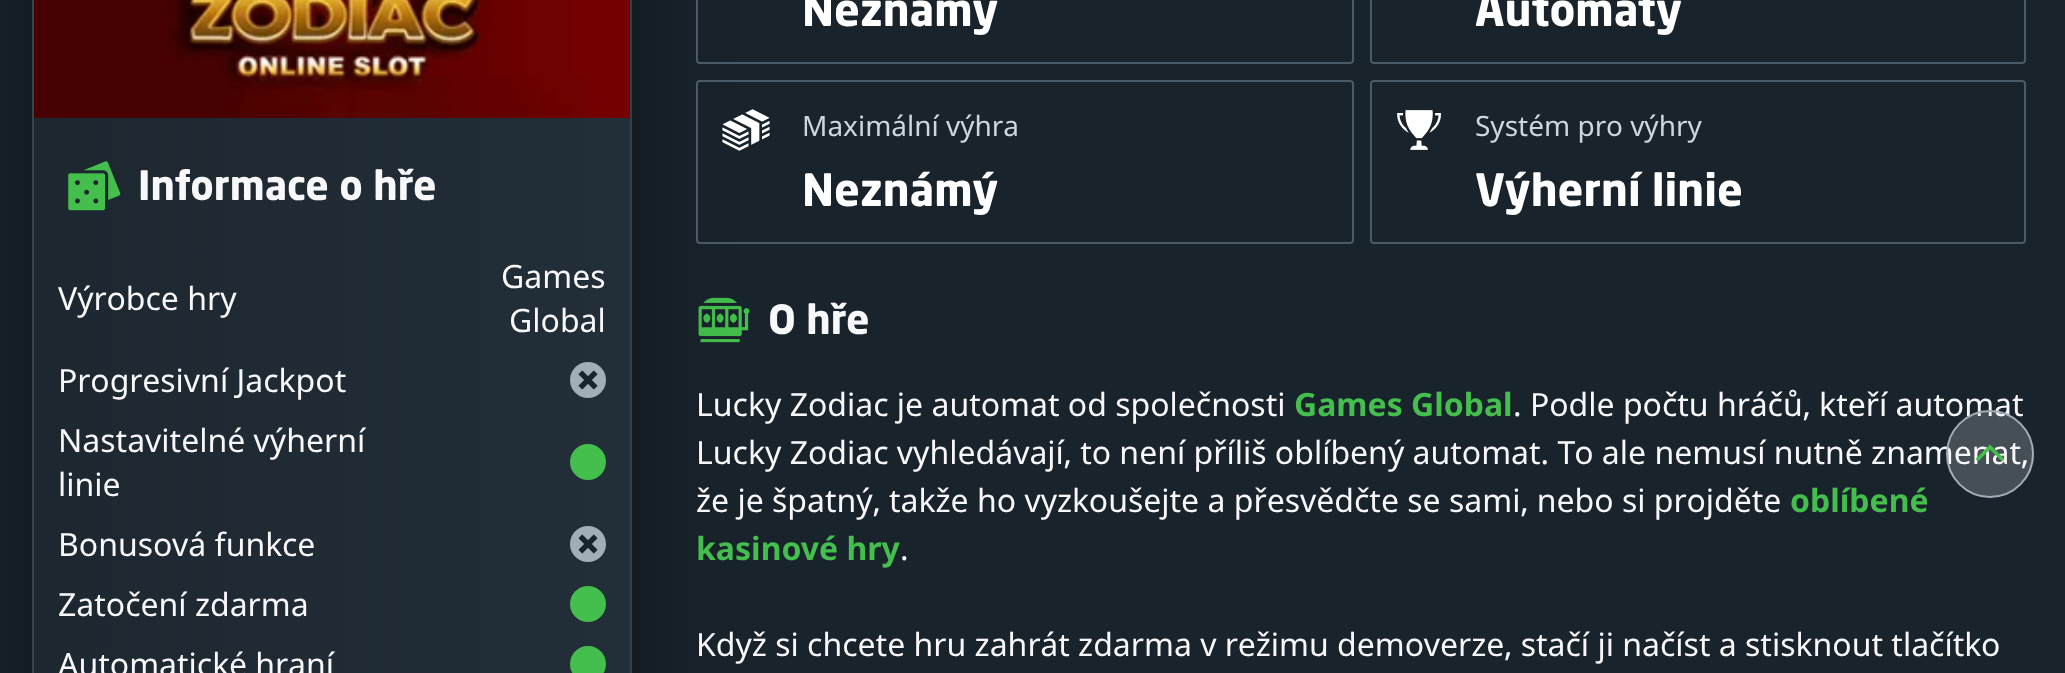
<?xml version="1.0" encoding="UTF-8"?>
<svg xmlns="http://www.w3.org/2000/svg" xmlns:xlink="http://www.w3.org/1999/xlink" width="2065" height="673">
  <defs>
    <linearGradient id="g1" gradientUnits="userSpaceOnUse" x1="34" y1="420" x2="-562" y2="420"><stop offset="0" stop-color="#222e38" /><stop offset="1" stop-color="#1d2730" /></linearGradient>
    <linearGradient id="g2" gradientUnits="userSpaceOnUse" x1="630" y1="420" x2="34" y2="420"><stop offset="0" stop-color="#222e38" /><stop offset="1" stop-color="#1d2730" /></linearGradient>
    <linearGradient id="g3" gradientUnits="userSpaceOnUse" x1="1226" y1="420" x2="630" y2="420"><stop offset="0" stop-color="#222e38" /><stop offset="1" stop-color="#1d2730" /></linearGradient>
  </defs>
  <rect width="100%" height="100%" fill="#19232c" />
  <image x="698" y="297" width="52" height="46" xlink:href="image6.png" />
  <rect x="32" y="-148" width="600" height="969" rx="4" fill="#000000" fill-opacity="0.4" filter="blur(48px)" />
  <rect x="697" y="-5" width="656" height="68" rx="3" fill="none" stroke="#4a5b68" stroke-width="2" />
  <rect x="1371" y="-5" width="654" height="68" rx="3" fill="none" stroke="#4a5b68" stroke-width="2" />
  <rect x="697" y="81" width="656" height="162" rx="3" fill="none" stroke="#4a5b68" stroke-width="2" />
  <image x="722" y="109" width="48" height="42" xlink:href="image1.png" />
  <rect x="1371" y="81" width="654" height="162" rx="3" fill="none" stroke="#4a5b68" stroke-width="2" />
  <image x="1397" y="110" width="44" height="40" xlink:href="image2.png" />
  <rect x="32" width="2" height="673" fill="url(#g1)" />
  <rect x="34" y="6" width="596" height="667" fill="url(#g2)" />
  <rect x="630" width="2" height="673" fill="url(#g3)" />
  <rect x="33" y="-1" width="598" height="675" fill="none" stroke="#ffffff" stroke-opacity="0.1" stroke-width="2" />
  <image x="34" y="0" width="596" height="118" xlink:href="image3.png" />
  <image x="68" y="161" width="53" height="50" xlink:href="image4.png" />
  <circle cx="588" cy="380" r="18" fill="#a2aeb7" />
  <image x="578" y="370" width="20" height="20" xlink:href="image5.png" />
  <circle cx="588" cy="462" r="18" fill="#44be4c" />
  <circle cx="588" cy="544" r="18" fill="#a2aeb7" />
  <image x="578" y="534" width="20" height="20" xlink:href="image5.png" />
  <circle cx="588" cy="604" r="18" fill="#44be4c" />
  <circle cx="588" cy="664" r="18" fill="#44be4c" />
  <text x="802" y="26" style="font-family: 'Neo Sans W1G'; font-size: 44px; font-weight: bold; fill: #ffffff">Neznámý</text>
  <text x="1475" y="26" style="font-family: 'Neo Sans W1G'; font-size: 44px; font-weight: bold; fill: #ffffff">Automaty</text>
  <text x="802" y="136" style="font-family: Noto Sans; font-size: 28px; fill: #cdd6dd">Maximální výhra</text>
  <text x="802" y="206" style="font-family: 'Neo Sans W1G'; font-size: 44px; font-weight: bold; fill: #ffffff">Neznámý</text>
  <text x="1475" y="136" style="font-family: Noto Sans; font-size: 28px; fill: #cdd6dd">Systém pro výhry</text>
  <text x="1475" y="206" style="font-family: 'Neo Sans W1G'; font-size: 44px; font-weight: bold; fill: #ffffff">Výherní linie</text>
  <text x="138" y="200" style="font-family: 'Neo Sans W1G'; font-size: 40px; font-weight: bold; fill: #f8f8fa">Informace o hře</text>
  <text x="58" y="310" style="font-family: Noto Sans; font-size: 32px; fill: #f8f8fa">Výrobce hry</text>
  <text x="501" y="288" style="font-family: Noto Sans; font-size: 32px; fill: #f8f8fa">Games</text>
  <text x="509" y="332" style="font-family: Noto Sans; font-size: 32px; fill: #f8f8fa">Global</text>
  <text x="58" y="392" style="font-family: Noto Sans; font-size: 32px; fill: #f8f8fa">Progresivní Jackpot</text>
  <text x="58" y="452" style="font-family: Noto Sans; font-size: 32px; fill: #f8f8fa">Nastavitelné výherní</text>
  <text x="58" y="496" style="font-family: Noto Sans; font-size: 32px; fill: #f8f8fa">linie</text>
  <text x="58" y="556" style="font-family: Noto Sans; font-size: 32px; fill: #f8f8fa">Bonusová funkce</text>
  <text x="58" y="616" style="font-family: Noto Sans; font-size: 32px; fill: #f8f8fa">Zatočení zdarma</text>
  <text x="58" y="676" style="font-family: Noto Sans; font-size: 32px; fill: #f8f8fa">Automatické hraní</text>
  <text x="768" y="334" style="font-family: 'Neo Sans W1G'; font-size: 40px; font-weight: bold; fill: #f8f8fa">O hře</text>
  <text x="696" y="416" style="font-family: Noto Sans; font-size: 32px; fill: #f8f8fa">Lucky Zodiac je automat od společnosti</text>
  <text x="1294" y="416" style="font-family: Noto Sans; font-size: 32px; font-weight: bold; fill: #44be4c">Games Global</text>
  <text x="1513" y="416" style="font-family: Noto Sans; font-size: 32px; fill: #f8f8fa">. Podle počtu hráčů, kteří automat</text>
  <text x="696" y="464" style="font-family: Noto Sans; font-size: 32px; fill: #f8f8fa">Lucky Zodiac vyhledávají, to není příliš oblíbený automat. To ale nemusí nutně znamenat,</text>
  <text x="696" y="512" style="font-family: Noto Sans; font-size: 32px; fill: #f8f8fa">že je špatný, takže ho vyzkoušejte a přesvědčte se sami, nebo si projděte</text>
  <text x="1790" y="512" style="font-family: Noto Sans; font-size: 32px; font-weight: bold; fill: #44be4c">oblíbené</text>
  <text x="696" y="560" style="font-family: Noto Sans; font-size: 32px; font-weight: bold; fill: #44be4c">kasinové hry</text>
  <text x="900" y="560" style="font-family: Noto Sans; font-size: 32px; fill: #f8f8fa">.</text>
  <text x="696" y="656" style="font-family: Noto Sans; font-size: 32px; fill: #f8f8fa">Když si chcete hru zahrát zdarma v režimu demoverze, stačí ji načíst a stisknout tlačítko</text>
  <circle cx="1990" cy="454" r="43" fill="#ffffff" fill-opacity="0.2" stroke="#a2aeb7" stroke-width="2" />
  <path d="M 2004.5 459 l -2.5 2.5 l -12 -12 l -12 12 l -2.5 -2.5 l 14.5 -14.5 z" fill="#44be4c" />
</svg>
